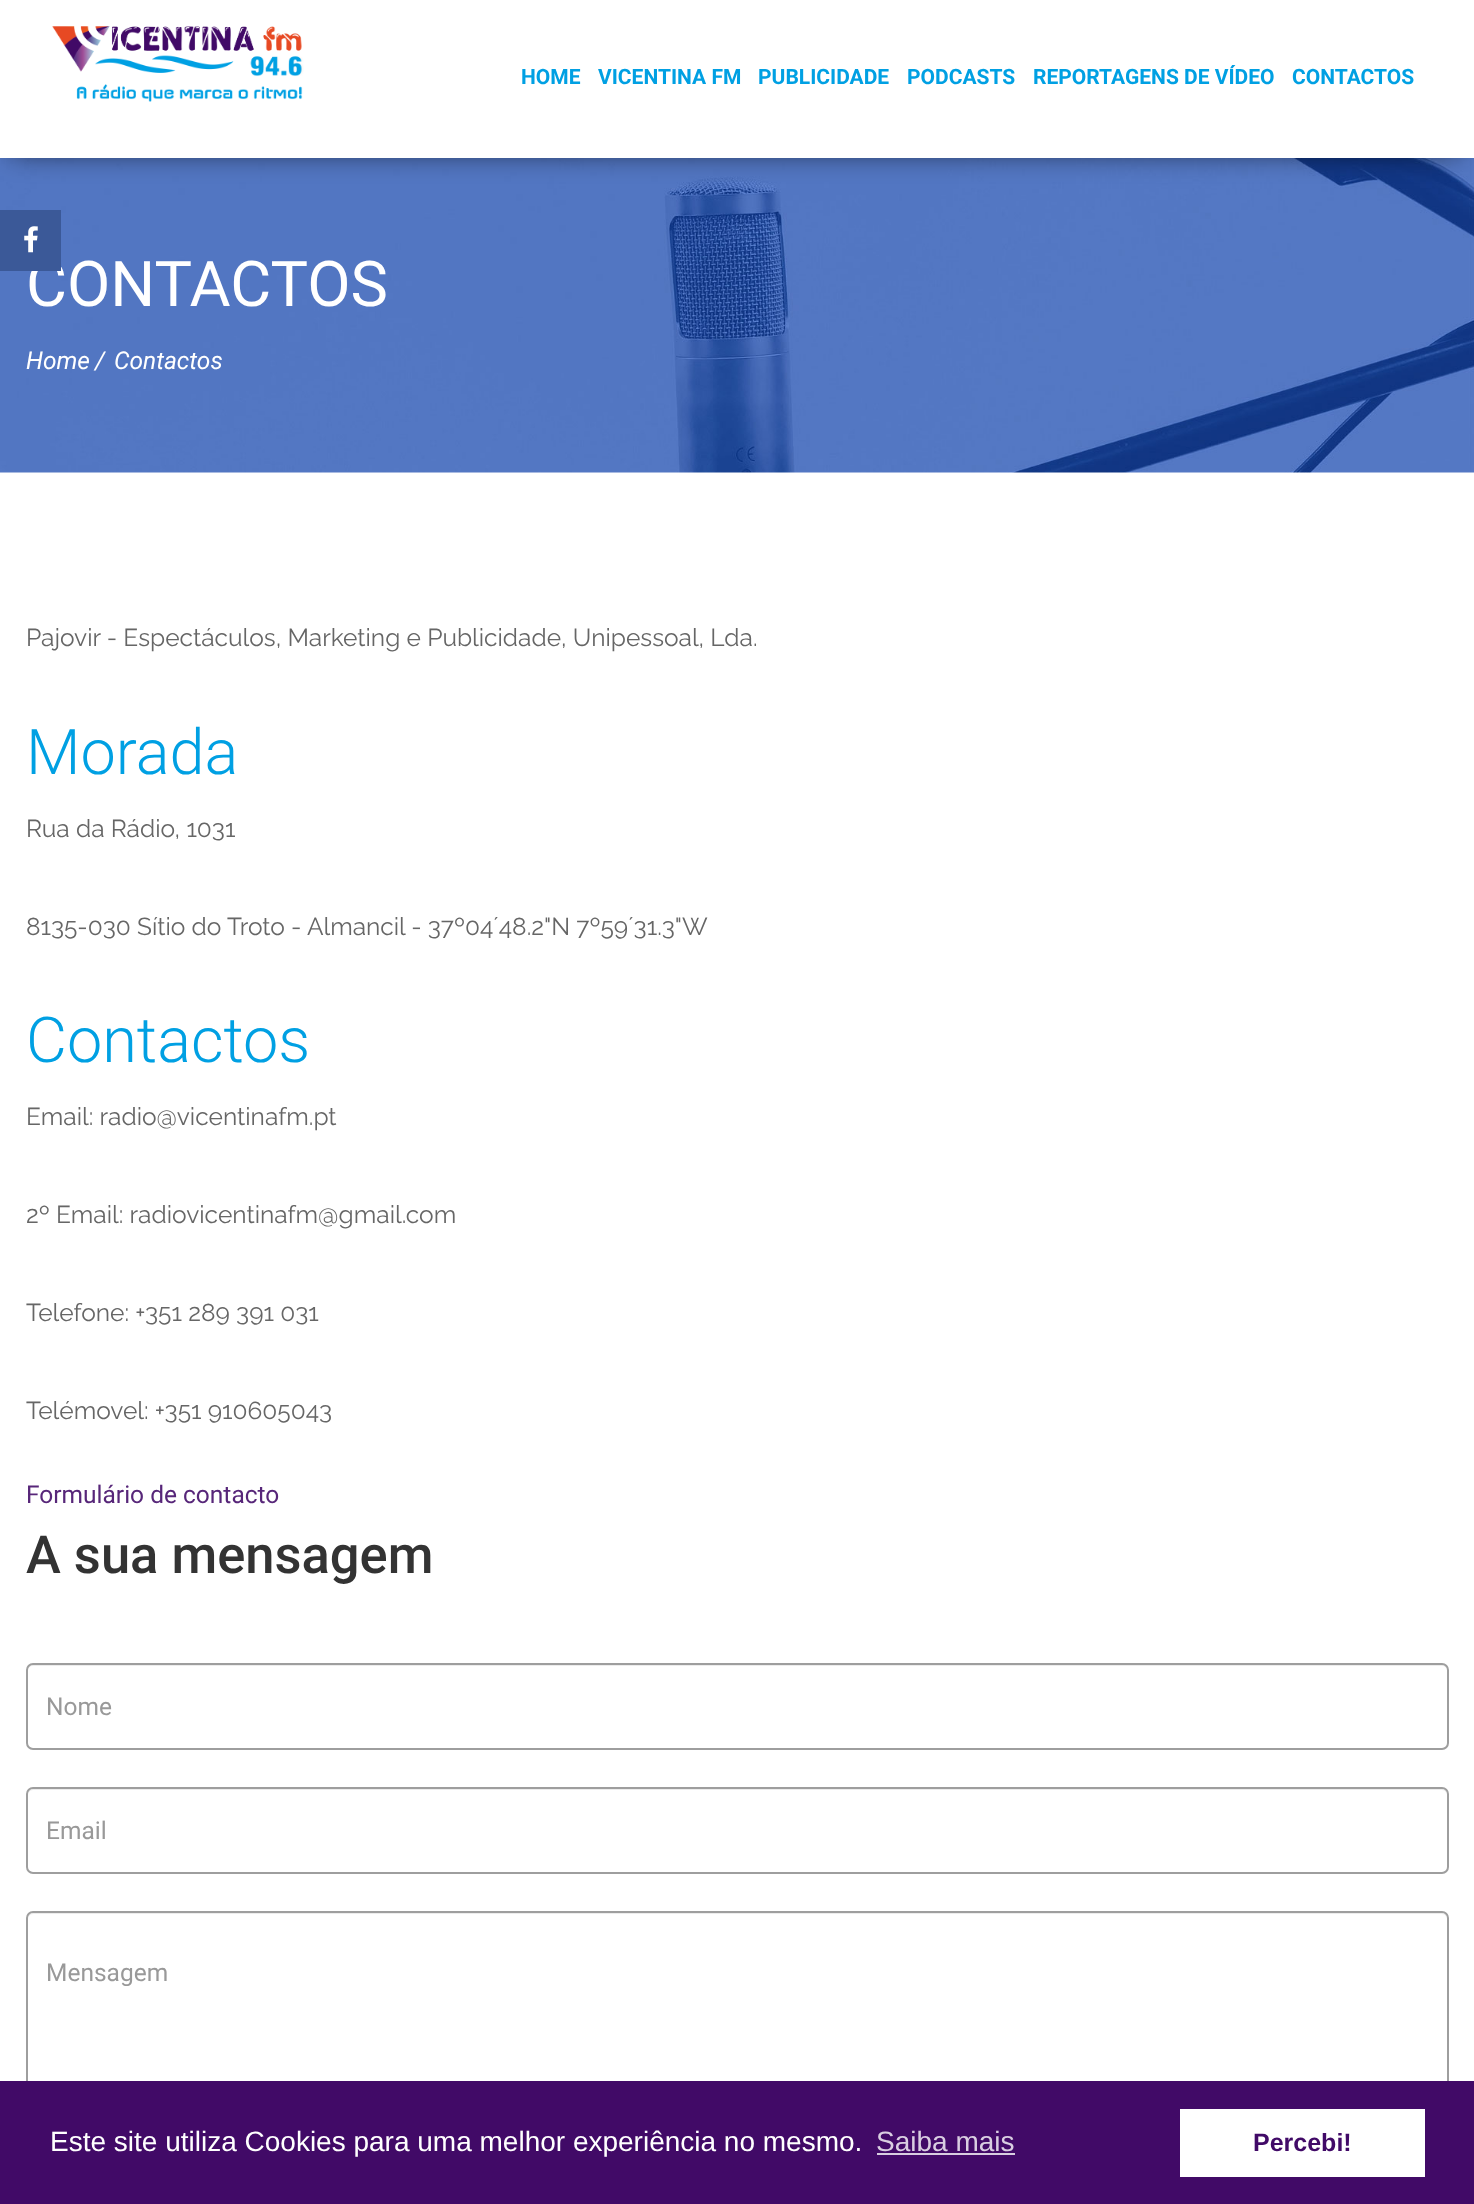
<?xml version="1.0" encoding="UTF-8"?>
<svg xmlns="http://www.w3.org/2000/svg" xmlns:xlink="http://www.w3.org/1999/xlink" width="1474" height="2204">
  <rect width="100%" height="100%" fill="#ffffff" />
  <image x="0" y="158" width="1474" height="315" xlink:href="image3.png" />
  <rect x="11" y="18" width="1450" height="133" fill="#000000" fill-opacity="0.75" filter="blur(14px)" />
  <rect width="1474" height="158" fill="#ffffff" />
  <image x="52" y="26" width="252" height="76" xlink:href="image1.png" />
  <path d="M 33 1666 h 1409 c 3 0 5 2 5 5 c 0 -3 -1 -7 -5 -7 h -1409 c -4 0 -5 4 -5 7 c 0 -3 2 -5 5 -5 z" fill="#ececec" />
  <rect x="27" y="1664" width="1421" height="85" rx="6" fill="none" stroke="#9e9e9e" stroke-width="2" />
  <path d="M 33 1790 h 1409 c 3 0 5 3 5 6 c 0 -3 -1 -7 -5 -7 h -1409 c -4 0 -5 4 -5 7 c 0 -3 2 -6 5 -6 z" fill="#ececec" />
  <rect x="27" y="1788" width="1421" height="85" rx="6" fill="none" stroke="#9e9e9e" stroke-width="2" />
  <path d="M 33 1914 h 1409 c 3 0 5 3 5 6 c 0 -3 -1 -7 -5 -7 h -1409 c -4 0 -5 4 -5 7 c 0 -3 2 -6 5 -6 z" fill="#ececec" />
  <rect x="27" y="1912" width="1421" height="261" rx="6" fill="none" stroke="#9e9e9e" stroke-width="2" />
  <rect y="2081" width="1474" height="123" fill="#410a67" />
  <rect x="877" y="2153" width="138" height="2" fill="#d9cee1" />
  <rect x="1180" y="2109" width="245" height="68" fill="#ffffff" />
  <text x="521" y="84" style="font-family: Roboto; font-size: 21px; font-weight: bold; fill: #00a0e3">HOME</text>
  <text x="598" y="84" style="font-family: Roboto; font-size: 21px; font-weight: bold; fill: #00a0e3">VICENTINA FM</text>
  <text x="758" y="84" style="font-family: Roboto; font-size: 21px; font-weight: bold; fill: #00a0e3">PUBLICIDADE</text>
  <text x="907" y="84" style="font-family: Roboto; font-size: 21px; font-weight: bold; fill: #00a0e3">PODCASTS</text>
  <text x="1033" y="84" style="font-family: Roboto; font-size: 21px; font-weight: bold; fill: #00a0e3">REPORTAGENS DE VÍDEO</text>
  <text x="1292" y="84" style="font-family: Roboto; font-size: 21px; font-weight: bold; fill: #00a0e3">CONTACTOS</text>
  <text x="26" y="306" style="font-family: Roboto; font-size: 63px; fill: #ffffff">CONTACTOS</text>
  <rect y="210" width="61" height="61" fill="#3b5998" />
  <image x="24" y="226" width="14" height="27" xlink:href="image2.png" />
  <text x="26" y="369" style="font-family: Roboto; font-size: 24.5px; font-style: italic; fill: #ffffff">Home</text>
  <text x="95" y="369" style="font-family: Roboto; font-size: 24.5px; font-style: italic; fill: #ffffff">/</text>
  <text x="114" y="369" style="font-family: Roboto; font-size: 24.5px; font-style: italic; fill: #ffffff">Contactos</text>
  <text x="26" y="646" style="font-family: Raleway; font-size: 24.5px; fill: #666666">Pajovir - Espectáculos, Marketing e Publicidade, Unipessoal, Lda.</text>
  <text x="26" y="774" style="font-family: Roboto; font-size: 63px; font-weight: 300; fill: #00a0e3">Morada</text>
  <text x="26" y="837" style="font-family: Raleway; font-size: 24.5px; fill: #666666">Rua da Rádio, 1031</text>
  <text x="26" y="935" style="font-family: Raleway; font-size: 24.5px; fill: #666666">8135-030 Sítio do Troto - Almancil - 37º04´48.2"N 7º59´31.3"W</text>
  <text x="26" y="1062" style="font-family: Roboto; font-size: 63px; font-weight: 300; fill: #00a0e3">Contactos</text>
  <text x="26" y="1125" style="font-family: Raleway; font-size: 24.5px; fill: #666666">Email: radio@vicentinafm.pt</text>
  <text x="26" y="1223" style="font-family: Raleway; font-size: 24.5px; fill: #666666">2º Email: radiovicentinafm@gmail.com</text>
  <text x="26" y="1321" style="font-family: Raleway; font-size: 24.5px; fill: #666666">Telefone: +351 289 391 031</text>
  <text x="26" y="1419" style="font-family: Raleway; font-size: 24.5px; fill: #666666">Telémovel: +351 910605043</text>
  <text x="26" y="1503" style="font-family: Roboto; font-size: 24.5px; fill: #572679">Formulário de contacto</text>
  <text x="26" y="1573" style="font-family: Roboto; font-size: 52.5px; font-weight: 500; fill: #333333">A sua mensagem</text>
  <text x="46" y="1715" style="font-family: Roboto; font-size: 24.5px; fill: #999999">Nome</text>
  <text x="46" y="1839" style="font-family: Roboto; font-size: 24.5px; fill: #999999">Email</text>
  <text x="46" y="1981" style="font-family: Roboto; font-size: 24.5px; fill: #999999">Mensagem</text>
  <text x="50" y="2151" style="font-family: Liberation Sans; font-size: 28px; fill: #ffffff">Este site utiliza Cookies para uma melhor experiência no mesmo.</text>
  <text x="876" y="2151" style="font-family: Liberation Sans; font-size: 28px; fill: #d9cee1">Saiba mais</text>
  <text x="1253" y="2151" style="font-family: Liberation Sans; font-size: 25px; font-weight: bold; fill: #410a67">Percebi!</text>
</svg>
